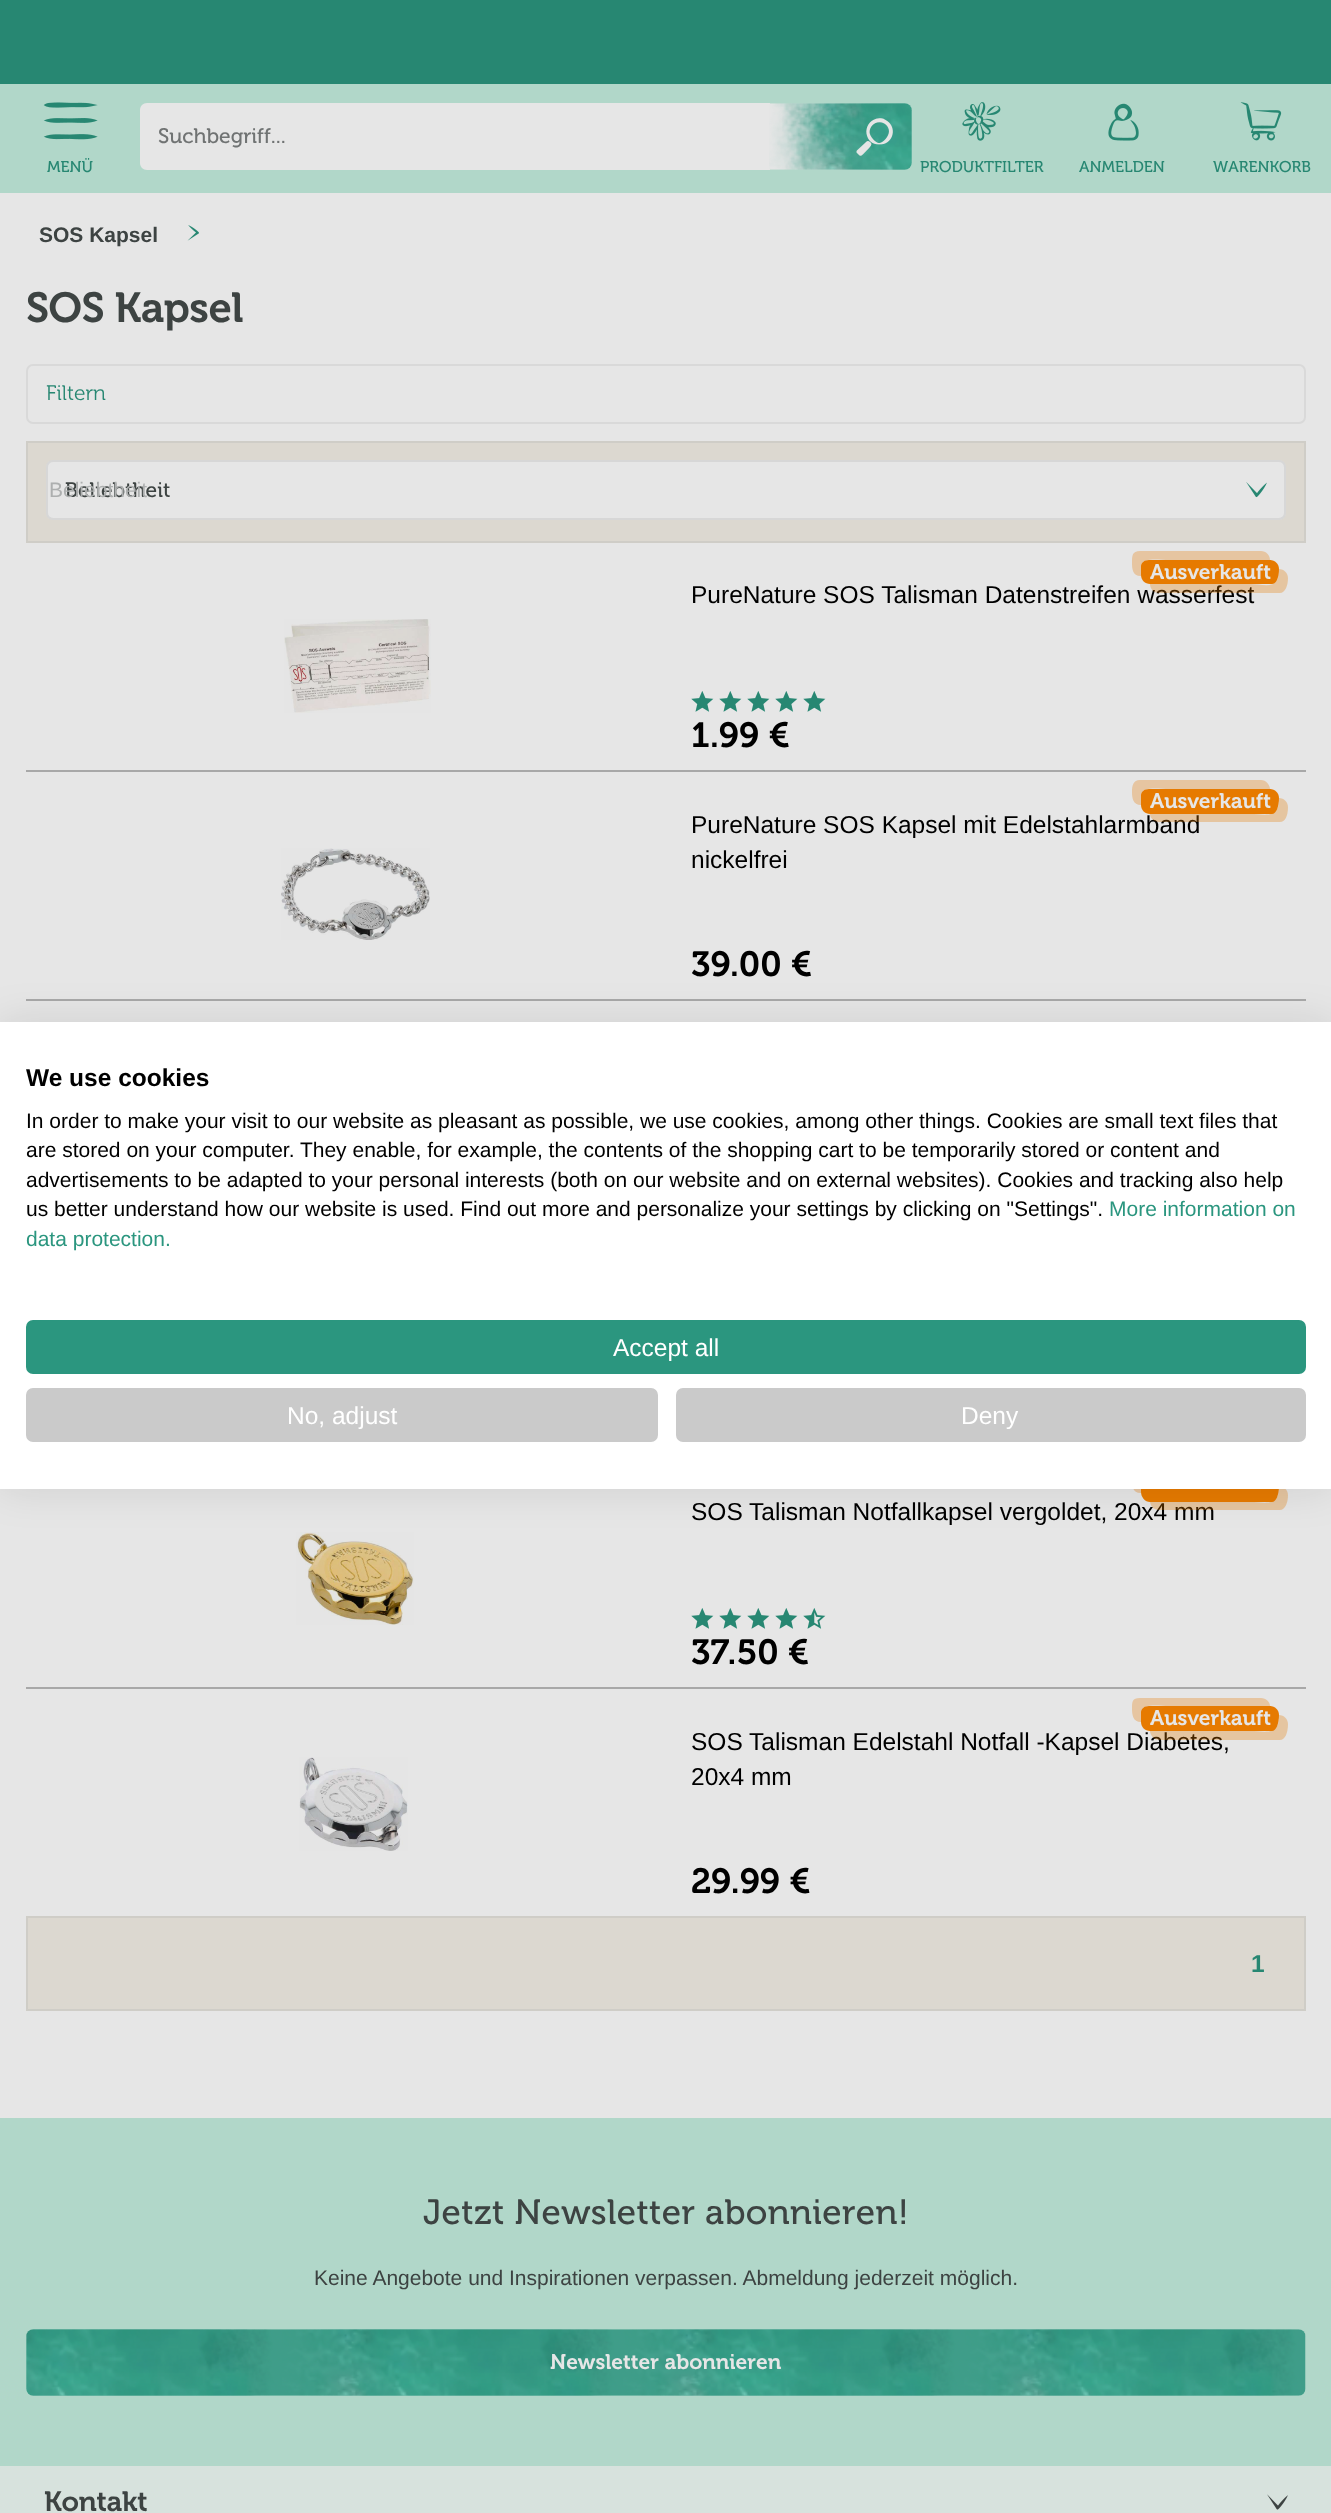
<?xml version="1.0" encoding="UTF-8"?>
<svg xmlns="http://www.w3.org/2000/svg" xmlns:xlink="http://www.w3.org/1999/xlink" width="1331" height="2513">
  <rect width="100%" height="100%" fill="#e6e6e6" />
  <rect width="1331" height="84" fill="#278772" />
  <rect y="84" width="1331" height="109" fill="#b1d7c9" />
  <path d="M 147 103 h 623 v 67 h -623 c -4 0 -7 -3 -7 -7 v -53 c 0 -4 3 -7 7 -7 z" fill="#e6e6e6" />
  <image x="769" y="103" width="143" height="67" xlink:href="image1.png" />
  <image x="856" y="118" width="37" height="38" xlink:href="image2.png" />
  <image x="43" y="102" width="55" height="38" xlink:href="image3.png" />
  <image x="962" y="102" width="39" height="39" xlink:href="image4.png" />
  <image x="1108" y="103" width="31" height="38" xlink:href="image5.png" />
  <image x="1240" y="102" width="42" height="39" xlink:href="image6.png" />
  <image x="187" y="225" width="12" height="16" xlink:href="image7.png" />
  <rect x="27" y="365" width="1278" height="58" rx="6" fill="none" stroke="#d9d9d9" stroke-width="2" />
  <rect x="27" y="442" width="1278" height="100" fill="#dcd8d0" stroke="#cfcdc7" stroke-width="2" />
  <rect x="46" y="460" width="1240" height="60" rx="7" fill="#e6e6e6" />
  <rect x="47" y="461" width="1238" height="58" rx="6" fill="none" stroke="#b4b4b4" stroke-opacity="0.31" stroke-width="2" />
  <image x="1246" y="482" width="21" height="16" xlink:href="image8.png" />
  <rect x="26" y="770" width="1280" height="2" fill="#a8a8a8" />
  <image x="284" y="619" width="147" height="94" xlink:href="image9.png" />
  <image x="691" y="691" width="23" height="21" xlink:href="image10.png" />
  <image x="719" y="691" width="23" height="21" xlink:href="image10.png" />
  <image x="747" y="691" width="23" height="21" xlink:href="image10.png" />
  <image x="775" y="691" width="23" height="21" xlink:href="image10.png" />
  <image x="803" y="691" width="23" height="21" xlink:href="image10.png" />
  <rect x="26" y="999" width="1280" height="2" fill="#a8a8a8" />
  <image x="281" y="848" width="149" height="92" xlink:href="image11.png" />
  <rect x="26" y="1687" width="1280" height="2" fill="#a8a8a8" />
  <image x="296" y="1532" width="118" height="93" xlink:href="image12.png" />
  <image x="691" y="1608" width="23" height="21" xlink:href="image10.png" />
  <image x="719" y="1608" width="23" height="21" xlink:href="image10.png" />
  <image x="747" y="1608" width="23" height="21" xlink:href="image10.png" />
  <image x="775" y="1608" width="23" height="21" xlink:href="image10.png" />
  <image x="803" y="1608" width="23" height="21" xlink:href="image13.png" />
  <image x="299" y="1757" width="109" height="94" xlink:href="image14.png" />
  <rect x="27" y="1917" width="1278" height="93" fill="#dcd8d0" stroke="#cfcdc7" stroke-width="2" />
  <rect y="2118" width="1331" height="348" fill="#b1d7c9" />
  <image x="26" y="2329" width="1280" height="67" xlink:href="image15.png" />
  <rect y="2466" width="1331" height="47" fill="#d7e2dd" />
  <image x="1267" y="2494" width="21" height="16" xlink:href="image16.png" />
  <text x="158" y="143" style="font-family: 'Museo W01'; font-size: 21px; fill: #707373">Suchbegriff...</text>
  <text x="47" y="172" style="font-family: 'Museo W01'; font-size: 15.75px; fill: #278772">MENÜ</text>
  <text x="920" y="172" style="font-family: 'Museo W01'; font-size: 15.75px; fill: #278772">PRODUKTFILTER</text>
  <text x="1079" y="172" style="font-family: 'Museo W01'; font-size: 15.75px; fill: #278772">ANMELDEN</text>
  <text x="1213" y="172" style="font-family: 'Museo W01'; font-size: 15.75px; fill: #278772">WARENKORB</text>
  <text x="39" y="242" style="font-family: Liberation Sans; font-size: 21px; font-weight: bold; fill: #3d4342">SOS Kapsel</text>
  <text x="26" y="322" style="font-family: 'Museo W01'; font-size: 42px; font-weight: 600; letter-spacing: -0.5px; fill: #3d4342">SOS Kapsel</text>
  <text x="46" y="400" style="font-family: 'Museo W01'; font-size: 21px; font-weight: 300; fill: #278772">Filtern</text>
  <text x="65" y="497" style="font-family: 'Museo W01'; font-size: 21px; fill: #3d4342">Beliebtheit</text>
  <text x="49" y="497" style="font-family: Liberation Sans; font-size: 21px; fill: #adafaf">Beliebtheit</text>
  <text x="691" y="603" style="font-family: Liberation Sans; font-size: 24.5px; fill: #000000">PureNature SOS Talisman Datenstreifen wasserfest</text>
  <path d="M 1150 584 c 0 5 4 9 9 9 h 121 c 5 0 8 -7 8 -15 c 0 -5 -4 -9 -9 -9 l -1 9 c -4 11 -16 6 -27 6 z" fill="#e67a00" fill-opacity="0.3" />
  <path d="M 1140 551 c -8 0 -8 5 -8 11 c 0 6 0 14 9 14 v -11 c 2 -8 19 -5 28 -5 h 101 c 0 -5 -4 -9 -9 -9 z" fill="#e6c5a1" />
  <path d="M 1149 560 h 121 c 5 0 9 4 9 9 c 0 9 -3 15 -7 15 h -122 c -5 0 -9 -4 -9 -9 v -9 c 0 -3 3 -6 8 -6 z" fill="#e67a00" />
  <text x="1150" y="579" style="font-family: 'Museo W01'; font-size: 21px; font-weight: 600; fill: #e6e6e6">Ausverkauft</text>
  <text x="691" y="747" style="font-family: 'Museo W01'; font-size: 35px; font-weight: 600; fill: #000000">1.99 €</text>
  <text x="691" y="833" style="font-family: Liberation Sans; font-size: 24.5px; fill: #000000">PureNature SOS Kapsel mit Edelstahlarmband</text>
  <path d="M 1150 814 c 0 4 4 8 9 8 h 121 c 5 0 8 -6 8 -15 c 0 -5 -4 -9 -9 -9 c 0 3 0 6 -1 9 c -4 11 -16 7 -27 7 z" fill="#e67a00" fill-opacity="0.3" />
  <path d="M 1140 780 c -7 0 -8 6 -8 12 c 0 6 1 13 9 13 v -11 c 2 -8 19 -5 28 -5 h 101 c 0 -4 -4 -9 -9 -9 z" fill="#e6c5a1" />
  <path d="M 1149 789 h 121 c 5 0 9 4 9 9 c 0 9 -3 16 -7 16 h -122 c -5 0 -9 -4 -9 -9 v -10 c 0 -3 3 -6 8 -6 z" fill="#e67a00" />
  <text x="1150" y="808" style="font-family: 'Museo W01'; font-size: 21px; font-weight: 600; fill: #e6e6e6">Ausverkauft</text>
  <text x="691" y="868" style="font-family: Liberation Sans; font-size: 24.5px; fill: #000000">nickelfrei</text>
  <text x="691" y="976" style="font-family: 'Museo W01'; font-size: 35px; font-weight: 600; fill: #000000">39.00 €</text>
  <text x="691" y="1520" style="font-family: Liberation Sans; font-size: 24.5px; fill: #000000">SOS Talisman Notfallkapsel vergoldet, 20x4 mm</text>
  <path d="M 1150 1501 c 0 5 4 9 9 9 h 121 c 5 0 8 -7 8 -15 c 0 -5 -4 -9 -9 -9 l -1 9 c -4 11 -16 7 -27 7 z" fill="#e67a00" fill-opacity="0.3" />
  <path d="M 1140 1468 c -8 0 -8 5 -8 11 c 0 6 0 14 9 14 v -11 c 2 -8 19 -5 28 -5 h 101 c 0 -5 -4 -9 -9 -9 z" fill="#e6c5a1" />
  <path d="M 1149 1477 h 121 c 5 0 9 4 9 9 c 0 9 -3 16 -7 16 h -122 c -5 0 -9 -5 -9 -10 v -9 c 0 -3 3 -6 8 -6 z" fill="#e67a00" />
  <text x="691" y="1664" style="font-family: 'Museo W01'; font-size: 35px; font-weight: 600; fill: #000000">37.50 €</text>
  <text x="691" y="1750" style="font-family: Liberation Sans; font-size: 24.5px; fill: #000000">SOS Talisman Edelstahl Notfall -Kapsel Diabetes,</text>
  <path d="M 1150 1731 c 0 4 4 9 9 9 h 121 c 5 0 8 -7 8 -16 c 0 -5 -4 -9 -9 -9 c 0 3 0 6 -1 9 c -4 11 -16 7 -27 7 z" fill="#e67a00" fill-opacity="0.3" />
  <path d="M 1140 1698 c -8 0 -8 4 -8 10 c 0 7 1 14 9 14 v -11 c 2 -8 19 -5 28 -5 h 101 c 0 -4 -4 -8 -9 -8 z" fill="#e6c5a1" />
  <path d="M 1149 1706 h 121 c 5 0 9 4 9 9 c 0 9 -3 16 -7 16 h -122 c -5 0 -9 -4 -9 -9 v -10 c 0 -3 3 -6 8 -6 z" fill="#e67a00" />
  <text x="1150" y="1725" style="font-family: 'Museo W01'; font-size: 21px; font-weight: 600; fill: #e6e6e6">Ausverkauft</text>
  <text x="691" y="1785" style="font-family: Liberation Sans; font-size: 24.5px; fill: #000000">20x4 mm</text>
  <text x="691" y="1893" style="font-family: 'Museo W01'; font-size: 35px; font-weight: 600; fill: #000000">29.99 €</text>
  <text x="1251" y="1972" style="font-family: Liberation Sans; font-size: 24.5px; font-weight: bold; fill: #278772">1</text>
  <text x="423" y="2224" style="font-family: 'Museo W01'; font-size: 35px; letter-spacing: 0.35px; fill: #3d4342">Jetzt Newsletter abonnieren!</text>
  <text x="314" y="2285" style="font-family: Liberation Sans; font-size: 21px; fill: #3d4342">Keine Angebote und Inspirationen verpassen. Abmeldung jederzeit möglich.</text>
  <text x="550" y="2369" style="font-family: 'Museo W01'; font-size: 21px; font-weight: 600; fill: #e6e6e6">Newsletter abonnieren</text>
  <text x="44" y="2511" style="font-family: 'Museo W01'; font-size: 28px; font-weight: 600; letter-spacing: -0.25px; fill: #3d4342">Kontakt</text>
  <rect y="1022" width="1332" height="467" fill="#000000" fill-opacity="0.1" filter="blur(21px)" />
  <rect y="1022" width="1331" height="467" fill="#ffffff" />
  <text x="26" y="1086" style="font-family: Liberation Sans; font-size: 24.5px; font-weight: bold; fill: #000000">We use cookies</text>
  <text x="26" y="1128" style="font-family: Liberation Sans; font-size: 21px; fill: #000000">In order to make your visit to our website as pleasant as possible, we use cookies, among other things. Cookies are small text files that</text>
  <text x="26" y="1157" style="font-family: Liberation Sans; font-size: 21px; fill: #000000">are stored on your computer. They enable, for example, the contents of the shopping cart to be temporarily stored or content and</text>
  <text x="26" y="1187" style="font-family: Liberation Sans; font-size: 21px; fill: #000000">advertisements to be adapted to your personal interests (both on our website and on external websites). Cookies and tracking also help</text>
  <text x="26" y="1216" style="font-family: Liberation Sans; font-size: 21px; fill: #000000">us better understand how our website is used. Find out more and personalize your settings by clicking on "Settings".</text>
  <text x="1109" y="1216" style="font-family: Liberation Sans; font-size: 21px; fill: #2b967f">More information on</text>
  <text x="26" y="1246" style="font-family: Liberation Sans; font-size: 21px; fill: #2b967f">data protection.</text>
  <rect x="27" y="1321" width="1278" height="52" rx="6" fill="#2b967f" stroke="#2b967f" stroke-width="2" />
  <text x="613" y="1356" style="font-family: Liberation Sans; font-size: 24.5px; fill: #ffffff">Accept all</text>
  <rect x="27" y="1389" width="630" height="52" rx="6" fill="#cacaca" stroke="#cacaca" stroke-width="2" />
  <text x="287" y="1424" style="font-family: Liberation Sans; font-size: 24.5px; fill: #ffffff">No, adjust</text>
  <rect x="677" y="1389" width="628" height="52" rx="6" fill="#cacaca" stroke="#cacaca" stroke-width="2" />
  <text x="961" y="1424" style="font-family: Liberation Sans; font-size: 24.5px; fill: #ffffff">Deny</text>
</svg>
